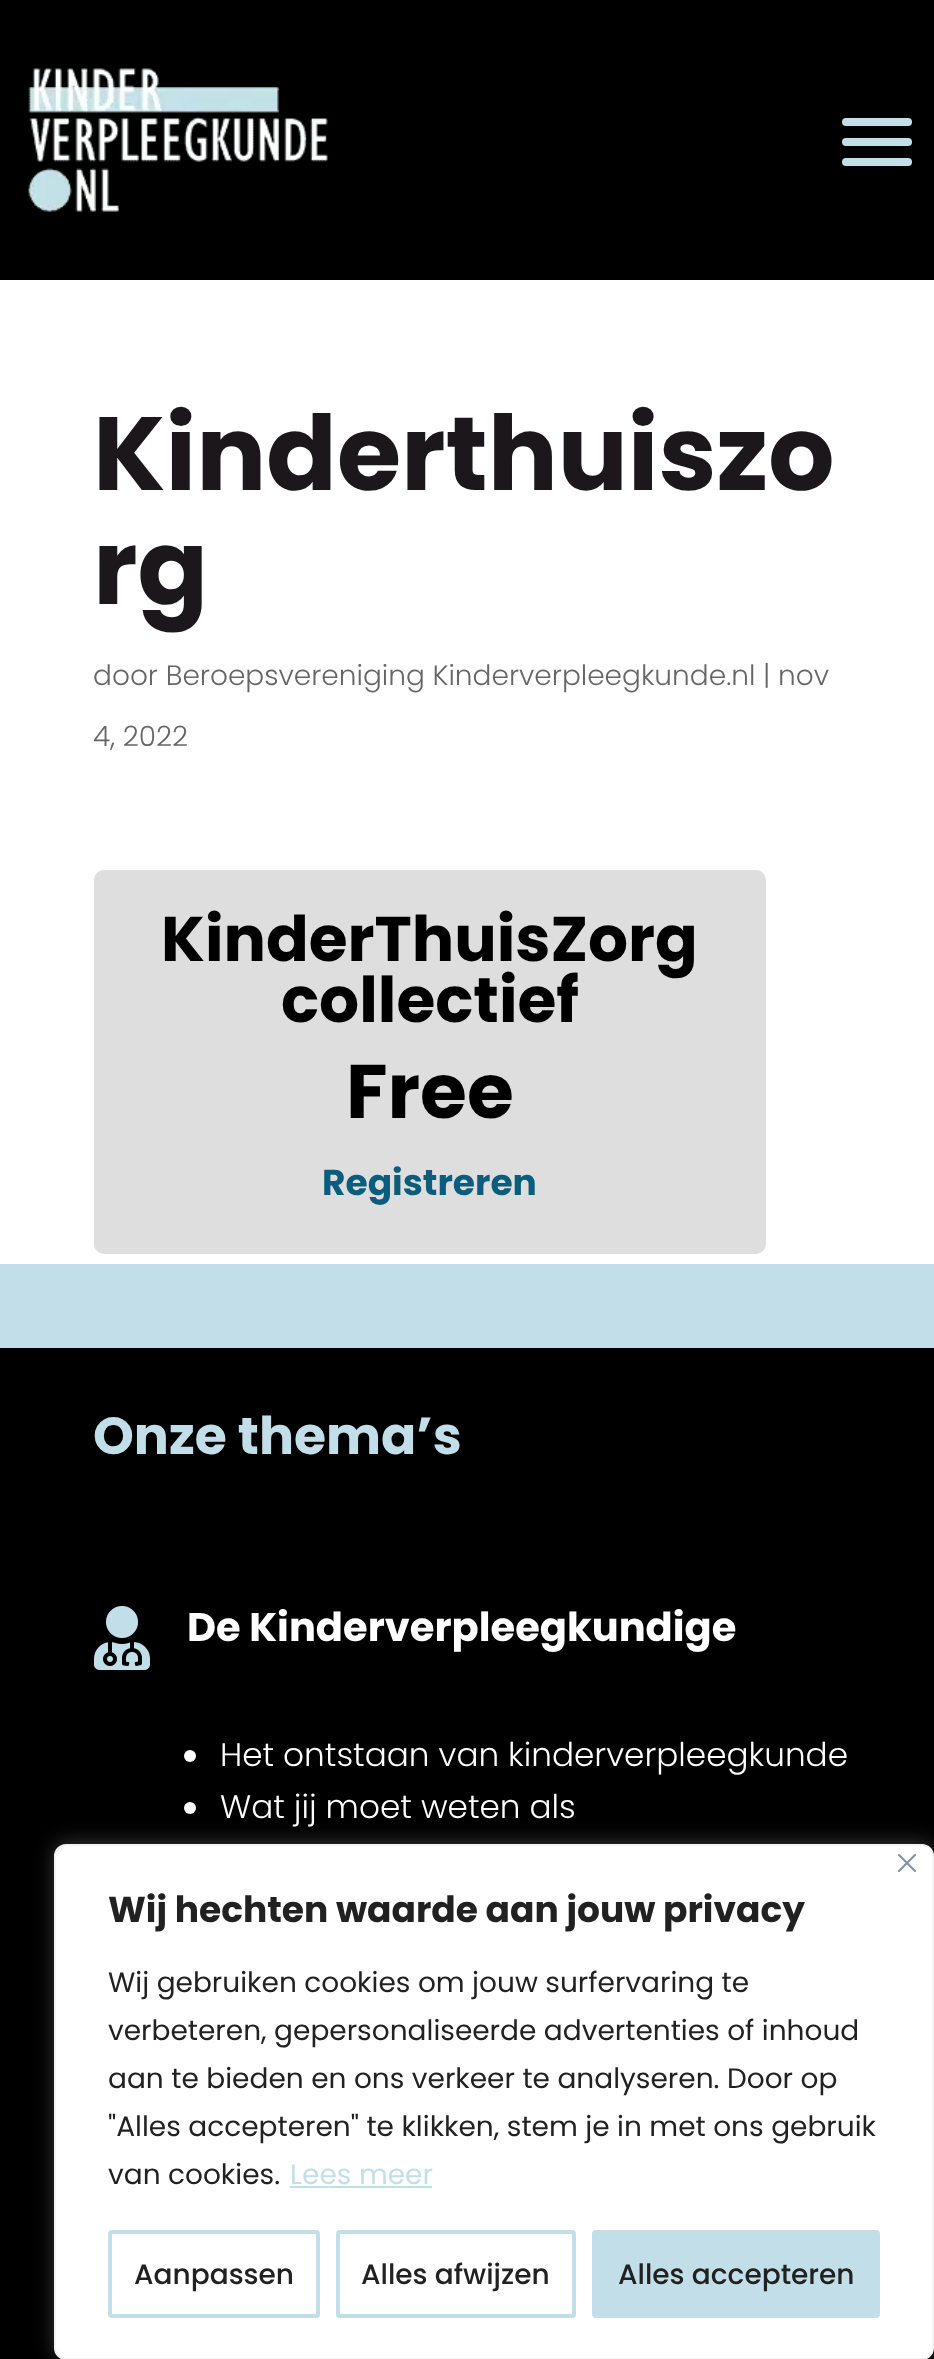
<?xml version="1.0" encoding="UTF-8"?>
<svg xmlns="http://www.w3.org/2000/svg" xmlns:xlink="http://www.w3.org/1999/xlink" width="934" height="2359">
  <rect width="100%" height="100%" fill="#c2dfe9" />
  <rect width="934" height="280" fill="#000000" />
  <image x="28" y="68" width="300" height="144" xlink:href="image1.png" />
  <rect x="842" y="158" width="70" height="8" rx="4" fill="#c2dfe9" />
  <rect x="842" y="118" width="70" height="8" rx="4" fill="#c2dfe9" />
  <rect x="842" y="138" width="70" height="8" rx="4" fill="#c2dfe9" />
  <rect y="280" width="934" height="984" fill="#ffffff" />
  <rect x="94" y="870" width="672" height="384" rx="10" fill="#dedede" />
  <rect y="1348" width="934" height="1011" fill="#000000" />
  <image x="94" y="1606" width="56" height="64" xlink:href="image2.png" />
  <circle cx="190" cy="1756" r="6" fill="#ffffff" />
  <circle cx="190" cy="1808" r="6" fill="#ffffff" />
  <rect x="54" y="1842" width="880" height="516" rx="12" fill="#acabab" fill-opacity="0.3" filter="blur(10px)" />
  <rect x="55" y="1845" width="878" height="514" rx="11" fill="#ffffff" stroke="#f4f4f4" stroke-width="2" />
  <image x="898" y="1854" width="18" height="18" xlink:href="image3.png" />
  <rect x="290" y="2186" width="142" height="2" fill="#c2dfe9" />
  <rect x="110" y="2232" width="208" height="84" rx="2" fill="none" stroke="#c2dfe9" stroke-width="4" />
  <rect x="338" y="2232" width="236" height="84" rx="2" fill="none" stroke="#c2dfe9" stroke-width="4" />
  <rect x="594" y="2232" width="284" height="84" rx="2" fill="#c2dfe9" stroke="#c2dfe9" stroke-width="4" />
  <text x="93" y="490" style="font-family: Poppins; font-size: 104px; font-weight: bold; fill: #1b171b">Kinderthuiszo</text>
  <text x="93" y="604" style="font-family: Poppins; font-size: 104px; font-weight: bold; fill: #1b171b">rg</text>
  <text x="93" y="685" style="font-family: Poppins; font-size: 28px; font-weight: 300; fill: #666666">door Beroepsvereniging Kinderverpleegkunde.nl | nov</text>
  <text x="93" y="746" style="font-family: Poppins; font-size: 28px; font-weight: 300; fill: #666666">4, 2022</text>
  <text x="161" y="961" style="font-family: Poppins; font-size: 63px; font-weight: bold; fill: #000000">KinderThuisZorg</text>
  <text x="281" y="1022" style="font-family: Poppins; font-size: 63px; font-weight: bold; fill: #000000">collectief</text>
  <text x="346" y="1118" style="font-family: Poppins; font-size: 76px; font-weight: bold; fill: #000000">Free</text>
  <text x="322" y="1195" style="font-family: Poppins; font-size: 36px; font-weight: bold; fill: #0c5d7c">Registreren</text>
  <text x="93" y="1454" style="font-family: Poppins; font-size: 52px; font-weight: bold; fill: #c2dfe9">Onze thema’s</text>
  <text x="187" y="1641" style="font-family: Poppins; font-size: 40px; font-weight: bold; fill: #ffffff">De Kinderverpleegkundige</text>
  <text x="220" y="1766" style="font-family: Poppins; font-size: 32.7px; font-weight: 300; fill: #ffffff">Het ontstaan van kinderverpleegkunde</text>
  <text x="220" y="1818" style="font-family: Poppins; font-size: 32.7px; font-weight: 300; fill: #ffffff">Wat jij moet weten als</text>
  <text x="108" y="1922" style="font-family: Poppins; font-size: 36px; font-weight: bold; fill: #212121">Wij hechten waarde aan jouw privacy</text>
  <text x="108" y="1992" style="font-family: Poppins; font-size: 28px; fill: #212121">Wij gebruiken cookies om jouw surfervaring te</text>
  <text x="108" y="2040" style="font-family: Poppins; font-size: 28px; fill: #212121">verbeteren, gepersonaliseerde advertenties of inhoud</text>
  <text x="108" y="2088" style="font-family: Poppins; font-size: 28px; fill: #212121">aan te bieden en ons verkeer te analyseren. Door op</text>
  <text x="108" y="2136" style="font-family: Poppins; font-size: 28px; fill: #212121">"Alles accepteren" te klikken, stem je in met ons gebruik</text>
  <text x="108" y="2184" style="font-family: Poppins; font-size: 28px; fill: #212121">van cookies.</text>
  <text x="290" y="2184" style="font-family: Poppins; font-size: 28px; fill: #c2dfe9">Lees meer</text>
  <text x="134" y="2284" style="font-family: Poppins; font-size: 28px; font-weight: 500; fill: #212121">Aanpassen</text>
  <text x="361" y="2284" style="font-family: Poppins; font-size: 28px; font-weight: 500; fill: #212121">Alles afwijzen</text>
  <text x="618" y="2284" style="font-family: Poppins; font-size: 28px; font-weight: 500; fill: #212121">Alles accepteren</text>
</svg>
